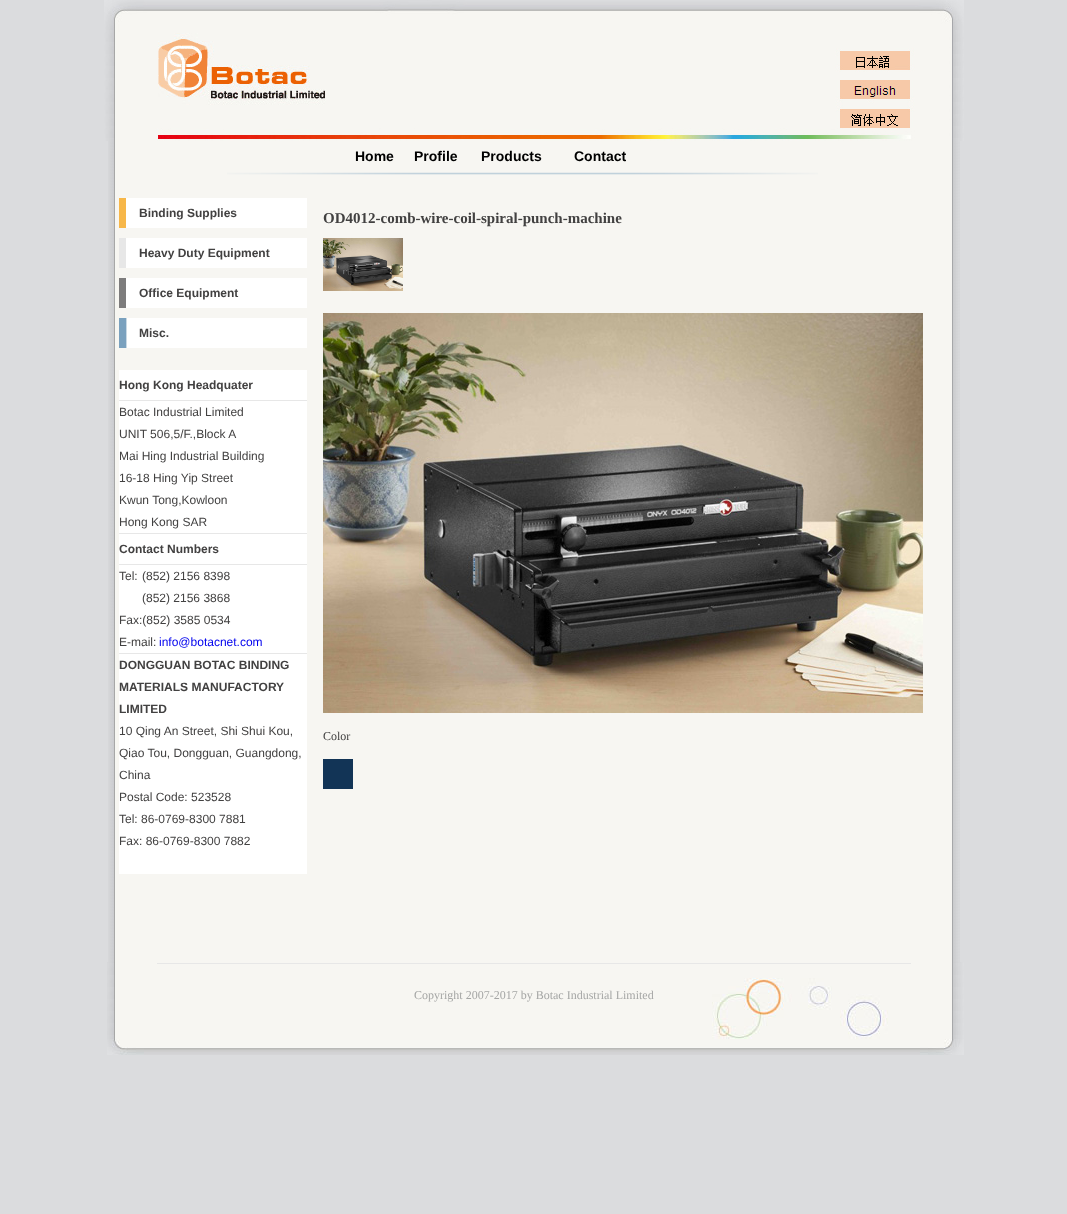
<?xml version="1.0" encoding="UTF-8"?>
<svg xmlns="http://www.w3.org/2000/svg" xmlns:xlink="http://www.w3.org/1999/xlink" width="1067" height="1214">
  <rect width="100%" height="100%" fill="#dbdcde" />
  <image x="104" y="0" width="860" height="141" xlink:href="image1.png" />
  <image x="108" y="141" width="852" height="30" xlink:href="image2.png" />
  <image x="108" y="171" width="852" height="5" xlink:href="image3.png" />
  <image x="227" y="172" width="591" height="3" xlink:href="image4.png" />
  <image x="108" y="176" width="852" height="786" xlink:href="image5.png" />
  <image x="119" y="198" width="188" height="30" xlink:href="image6.png" />
  <image x="119" y="238" width="188" height="30" xlink:href="image7.png" />
  <image x="119" y="278" width="188" height="30" xlink:href="image8.png" />
  <image x="119" y="318" width="188" height="30" xlink:href="image9.png" />
  <rect x="119" y="370" width="188" height="504" fill="#ffffff" />
  <rect x="119" y="400" width="188" height="1" fill="#e7e7e7" />
  <rect x="119" y="533" width="188" height="1" fill="#e7e7e7" />
  <rect x="119" y="564" width="188" height="1" fill="#e7e7e7" />
  <rect x="119" y="653" width="188" height="1" fill="#e7e7e7" />
  <image x="323" y="238" width="80" height="53" xlink:href="image10.png" />
  <image x="323" y="313" width="600" height="400" xlink:href="image11.png" />
  <rect x="323" y="759" width="30" height="30" fill="#123456" />
  <image x="107" y="962" width="857" height="93" xlink:href="image12.png" />
  <text x="355" y="161" style="font-family: Liberation Sans; font-size: 14px; font-weight: bold; fill: #000000">Home</text>
  <text x="414" y="161" style="font-family: Liberation Sans; font-size: 14px; font-weight: bold; fill: #000000">Profile</text>
  <text x="481" y="161" style="font-family: Liberation Sans; font-size: 14px; font-weight: bold; fill: #000000">Products</text>
  <text x="574" y="161" style="font-family: Liberation Sans; font-size: 14px; font-weight: bold; fill: #000000">Contact</text>
  <text x="139" y="217" style="font-family: Liberation Sans; font-size: 12px; font-weight: bold; fill: #424141">Binding Supplies</text>
  <text x="139" y="257" style="font-family: Liberation Sans; font-size: 12px; font-weight: bold; fill: #424141">Heavy Duty Equipment</text>
  <text x="139" y="297" style="font-family: Liberation Sans; font-size: 12px; font-weight: bold; fill: #424141">Office Equipment</text>
  <text x="139" y="337" style="font-family: Liberation Sans; font-size: 12px; font-weight: bold; fill: #424141">Misc.</text>
  <text x="119" y="389" style="font-family: Liberation Sans; font-size: 12px; font-weight: bold; fill: #424141">Hong Kong Headquater</text>
  <text x="119" y="416" style="font-family: Liberation Sans; font-size: 12px; fill: #424141">Botac Industrial Limited</text>
  <text x="119" y="438" style="font-family: Liberation Sans; font-size: 12px; fill: #424141">UNIT 506,5/F.,Block A</text>
  <text x="119" y="460" style="font-family: Liberation Sans; font-size: 12px; fill: #424141">Mai Hing Industrial Building</text>
  <text x="119" y="482" style="font-family: Liberation Sans; font-size: 12px; fill: #424141">16-18 Hing Yip Street</text>
  <text x="119" y="504" style="font-family: Liberation Sans; font-size: 12px; fill: #424141">Kwun Tong,Kowloon</text>
  <text x="119" y="526" style="font-family: Liberation Sans; font-size: 12px; fill: #424141">Hong Kong SAR</text>
  <text x="119" y="553" style="font-family: Liberation Sans; font-size: 12px; font-weight: bold; fill: #424141">Contact Numbers</text>
  <text x="119" y="580" style="font-family: Liberation Sans; font-size: 12px; fill: #424141">Tel:</text>
  <text x="142" y="580" style="font-family: Liberation Sans; font-size: 12px; fill: #424141">(852) 2156 8398</text>
  <text x="142" y="602" style="font-family: Liberation Sans; font-size: 12px; fill: #424141">(852) 2156 3868</text>
  <text x="119" y="624" style="font-family: Liberation Sans; font-size: 12px; fill: #424141">Fax:(852) 3585 0534</text>
  <text x="119" y="646" style="font-family: Liberation Sans; font-size: 12px; fill: #424141">E-mail:</text>
  <text x="159" y="646" style="font-family: Liberation Sans; font-size: 12px; fill: #0000ee">info@botacnet.com</text>
  <text x="119" y="669" style="font-family: Liberation Sans; font-size: 12px; font-weight: bold; fill: #424141">DONGGUAN BOTAC BINDING</text>
  <text x="119" y="691" style="font-family: Liberation Sans; font-size: 12px; font-weight: bold; fill: #424141">MATERIALS MANUFACTORY</text>
  <text x="119" y="713" style="font-family: Liberation Sans; font-size: 12px; font-weight: bold; fill: #424141">LIMITED</text>
  <text x="119" y="735" style="font-family: Liberation Sans; font-size: 12px; fill: #424141">10 Qing An Street, Shi Shui Kou,</text>
  <text x="119" y="757" style="font-family: Liberation Sans; font-size: 12px; fill: #424141">Qiao Tou, Dongguan, Guangdong,</text>
  <text x="119" y="779" style="font-family: Liberation Sans; font-size: 12px; fill: #424141">China</text>
  <text x="119" y="801" style="font-family: Liberation Sans; font-size: 12px; fill: #424141">Postal Code: 523528</text>
  <text x="119" y="823" style="font-family: Liberation Sans; font-size: 12px; fill: #424141">Tel: 86-0769-8300 7881</text>
  <text x="119" y="845" style="font-family: Liberation Sans; font-size: 12px; fill: #424141">Fax: 86-0769-8300 7882</text>
  <text x="323" y="223" style="font-family: Liberation Serif; font-size: 15px; font-weight: bold; fill: #424141">OD4012-comb-wire-coil-spiral-punch-machine</text>
  <text x="323" y="740" style="font-family: Liberation Serif; font-size: 12px; fill: #424141">Color</text>
  <text x="414" y="999" style="font-family: Liberation Serif; font-size: 12px; fill: #a5a6a5">Copyright 2007-2017 by Botac Industrial Limited</text>
</svg>
